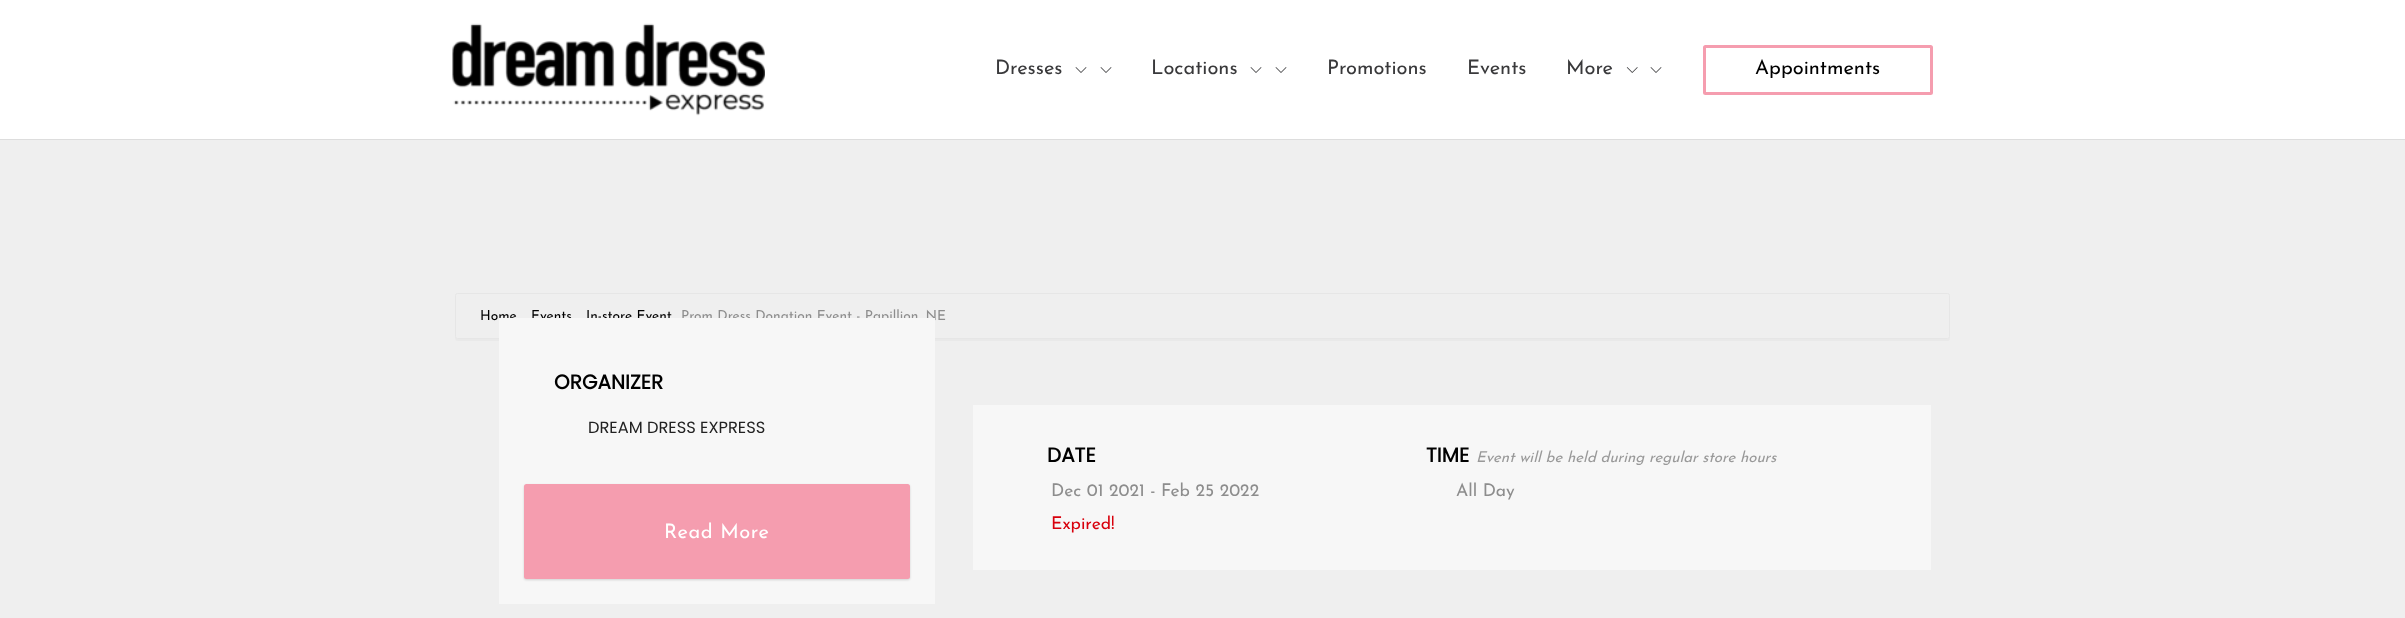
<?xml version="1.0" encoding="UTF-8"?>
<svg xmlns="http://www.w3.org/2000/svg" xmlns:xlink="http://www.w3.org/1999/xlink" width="2405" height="618">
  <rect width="100%" height="100%" fill="#efefef" />
  <rect width="2405" height="139" fill="#ffffff" />
  <rect y="139" width="2405" height="1" fill="#dddddd" />
  <image x="452" y="23" width="313" height="93" xlink:href="image1.png" />
  <image x="1075" y="67" width="12" height="6" xlink:href="image2.png" />
  <image x="1100" y="67" width="12" height="6" xlink:href="image2.png" />
  <image x="1250" y="67" width="12" height="6" xlink:href="image2.png" />
  <image x="1275" y="67" width="12" height="6" xlink:href="image2.png" />
  <image x="1626" y="67" width="12" height="6" xlink:href="image3.png" />
  <image x="1650" y="67" width="12" height="6" xlink:href="image2.png" />
  <rect x="1704.5" y="46.5" width="227" height="47" rx="1" fill="none" stroke="#f59daf" stroke-width="3" />
  <path d="M 455 336 c 0 2 0 5 3 5 h 1490 c 2 0 2 -3 2 -5 c 0 2 -1 3 -2 3 h -1490 c -2 0 -3 -1 -3 -3 z" fill="#e9e9e9" />
  <rect x="455.5" y="293.5" width="1494" height="45" rx="2" fill="none" stroke="#e6e6e6" />
  <rect x="973" y="405" width="958" height="165" fill="#f7f7f7" />
  <text x="995" y="74" style="font-family: Josefin Sans; font-size: 20px; font-weight: 100; fill: #39393b">Dresses</text>
  <text x="1151" y="74" style="font-family: Josefin Sans; font-size: 20px; font-weight: 100; fill: #39393b">Locations</text>
  <text x="1327" y="74" style="font-family: Josefin Sans; font-size: 20px; font-weight: 100; fill: #39393b">Promotions</text>
  <text x="1467" y="74" style="font-family: Josefin Sans; font-size: 20px; font-weight: 100; fill: #39393b">Events</text>
  <text x="1566" y="74" style="font-family: Josefin Sans; font-size: 20px; font-weight: 100; fill: #39393b">More</text>
  <text x="1755" y="74" style="font-family: Josefin Sans; font-size: 20px; font-weight: 100; fill: #000000">Appointments</text>
  <text x="480" y="320" style="font-family: Josefin Sans; font-size: 13.75px; font-weight: 100; fill: #000000">Home</text>
  <text x="531" y="320" style="font-family: Josefin Sans; font-size: 13.75px; font-weight: 100; fill: #000000">Events</text>
  <text x="586" y="320" style="font-family: Josefin Sans; font-size: 13.75px; font-weight: 100; fill: #000000">In-store Event</text>
  <text x="681" y="320" style="font-family: Josefin Sans; font-size: 13.75px; font-weight: 100; fill: #8d8d8d">Prom Dress Donation Event - Papillion, NE</text>
  <rect x="499" y="318" width="436" height="286" fill="#f7f7f7" />
  <text x="554" y="389" style="font-family: Poppins; font-size: 20px; font-weight: bold; fill: #000000">ORGANIZER</text>
  <text x="588" y="433" style="font-family: Poppins; font-size: 16.25px; fill: #222222">DREAM DRESS EXPRESS</text>
  <rect x="524" y="485" width="386" height="95" rx="2.5" fill="#000000" fill-opacity="0.15" filter="blur(1px)" />
  <rect x="524" y="484" width="386" height="95" rx="2.5" fill="#f59daf" />
  <text x="664" y="538" style="font-family: Josefin Sans; font-size: 20px; font-weight: 100; letter-spacing: 0.6px; fill: #ffffff">Read More</text>
  <text x="1047" y="462" style="font-family: Poppins; font-size: 20px; font-weight: bold; fill: #000000">DATE</text>
  <text x="1051" y="496" style="font-family: Josefin Sans; font-size: 17.5px; font-weight: 100; fill: #8d8d8d">Dec 01 2021 - Feb 25 2022</text>
  <text x="1051" y="529" style="font-family: Josefin Sans; font-size: 17.5px; font-weight: 100; fill: #d8000c">Expired!</text>
  <text x="1426" y="462" style="font-family: Poppins; font-size: 20px; font-weight: bold; fill: #000000">TIME</text>
  <text x="1476" y="462" style="font-family: Josefin Sans; font-size: 15px; font-weight: 100; font-style: italic; fill: #999999">Event will be held during regular store hours</text>
  <text x="1456" y="496" style="font-family: Josefin Sans; font-size: 17.5px; font-weight: 100; fill: #8d8d8d">All Day</text>
</svg>
